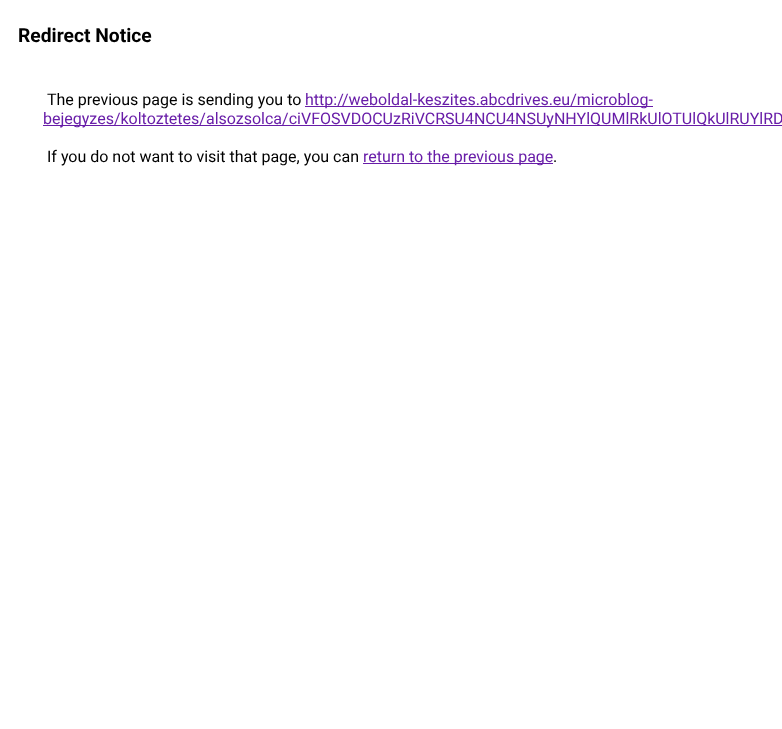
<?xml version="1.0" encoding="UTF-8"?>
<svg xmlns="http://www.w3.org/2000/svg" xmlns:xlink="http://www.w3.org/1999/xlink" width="782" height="729">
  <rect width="100%" height="100%" fill="#ffffff" />
  <rect x="305" y="106" width="348" height="1" fill="#681da8" />
  <rect x="43" y="125" width="739" height="1" fill="#681da8" />
  <rect x="363" y="163" width="190" height="1" fill="#681da8" />
  <text x="18" y="42" style="font-family: Roboto; font-size: 19.25px; font-weight: bold; fill: #000000">Redirect Notice</text>
  <text x="47" y="105" style="font-family: Roboto; font-size: 16px; fill: #000000">The previous page is sending you to</text>
  <text x="305" y="105" style="font-family: Roboto; font-size: 16px; fill: #681da8">http://weboldal-keszites.abcdrives.eu/microblog-</text>
  <text x="43" y="124" style="font-family: Roboto; font-size: 16px; fill: #681da8">bejegyzes/koltoztetes/alsozsolca/ciVFOSVDOCUzRiVCRSU4NCU4NSUyNHYlQUMlRkUlOTUlQkUlRUYlRD</text>
  <text x="47" y="162" style="font-family: Roboto; font-size: 16px; fill: #000000">If you do not want to visit that page, you can</text>
  <text x="363" y="162" style="font-family: Roboto; font-size: 16px; fill: #681da8">return to the previous page</text>
  <text x="553" y="162" style="font-family: Roboto; font-size: 16px; fill: #000000">.</text>
</svg>
